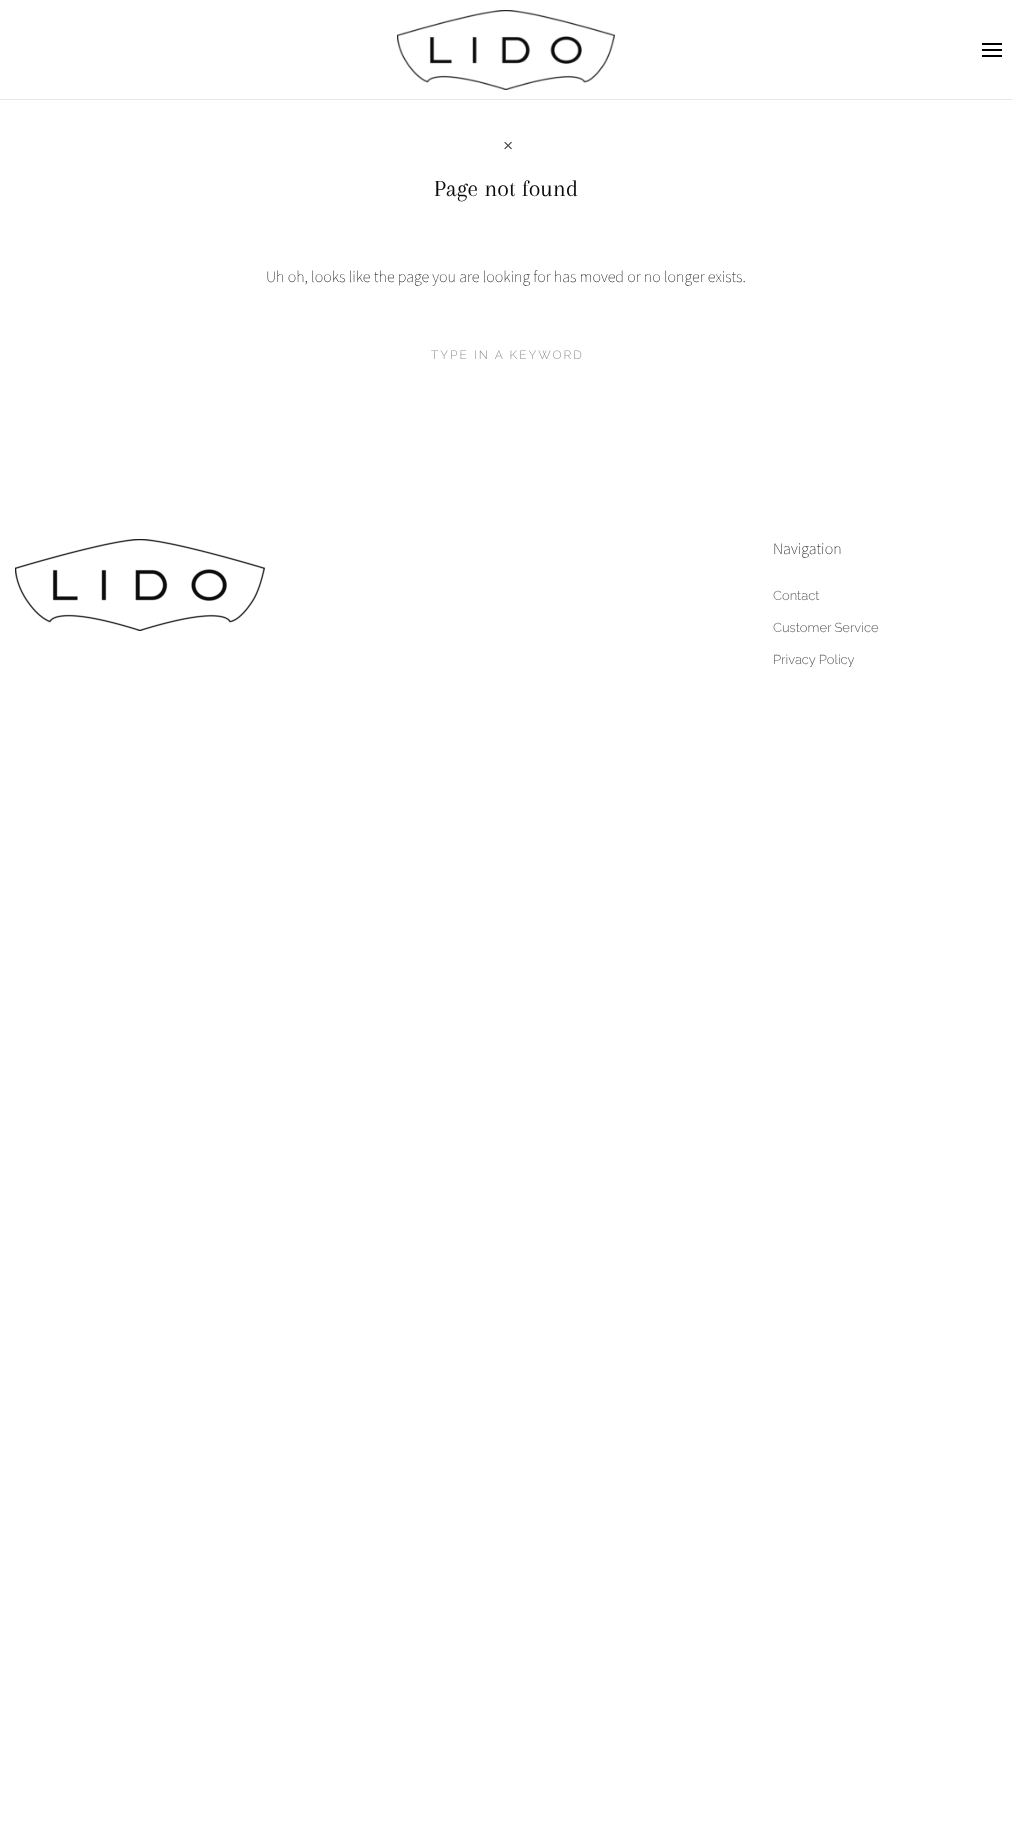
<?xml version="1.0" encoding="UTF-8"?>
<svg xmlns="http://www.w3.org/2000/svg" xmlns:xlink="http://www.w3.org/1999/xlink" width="1012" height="1840">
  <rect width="100%" height="100%" fill="#ffffff" />
  <rect y="99" width="1012" height="1" fill="#e6e6e6" />
  <image x="397" y="10" width="218" height="80" xlink:href="image1.png" />
  <rect x="982" y="49" width="20" height="2" fill="#000000" />
  <rect x="982" y="43" width="20" height="2" fill="#000000" />
  <rect x="982" y="55" width="20" height="2" fill="#000000" />
  <image x="15" y="539" width="250" height="92" xlink:href="image2.png" />
  <text x="502" y="150" style="font-family: Arapey; font-size: 23px; fill: #444646">×</text>
  <text x="434" y="196" style="font-family: Arapey; font-size: 24px; fill: #0b0b0b">Page not found</text>
  <text x="266" y="282" style="font-family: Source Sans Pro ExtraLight; font-size: 16px; font-weight: 200; fill: #0b0b0b">Uh oh, looks like the page you are looking for has moved or no longer exists.</text>
  <text x="431" y="359" style="font-family: Raleway; font-size: 12px; font-weight: 300; letter-spacing: 2px; fill: #919191">TYPE IN A KEYWORD</text>
  <text x="773" y="554" style="font-family: Source Sans Pro ExtraLight; font-size: 16px; font-weight: 200; fill: #020202">Navigation</text>
  <text x="773" y="600" style="font-family: Raleway; font-size: 13px; font-weight: 300; fill: #5b5b5b">Contact</text>
  <text x="773" y="632" style="font-family: Raleway; font-size: 13px; font-weight: 300; fill: #5b5b5b">Customer Service</text>
  <text x="773" y="664" style="font-family: Raleway; font-size: 13px; font-weight: 300; fill: #5b5b5b">Privacy Policy</text>
</svg>
